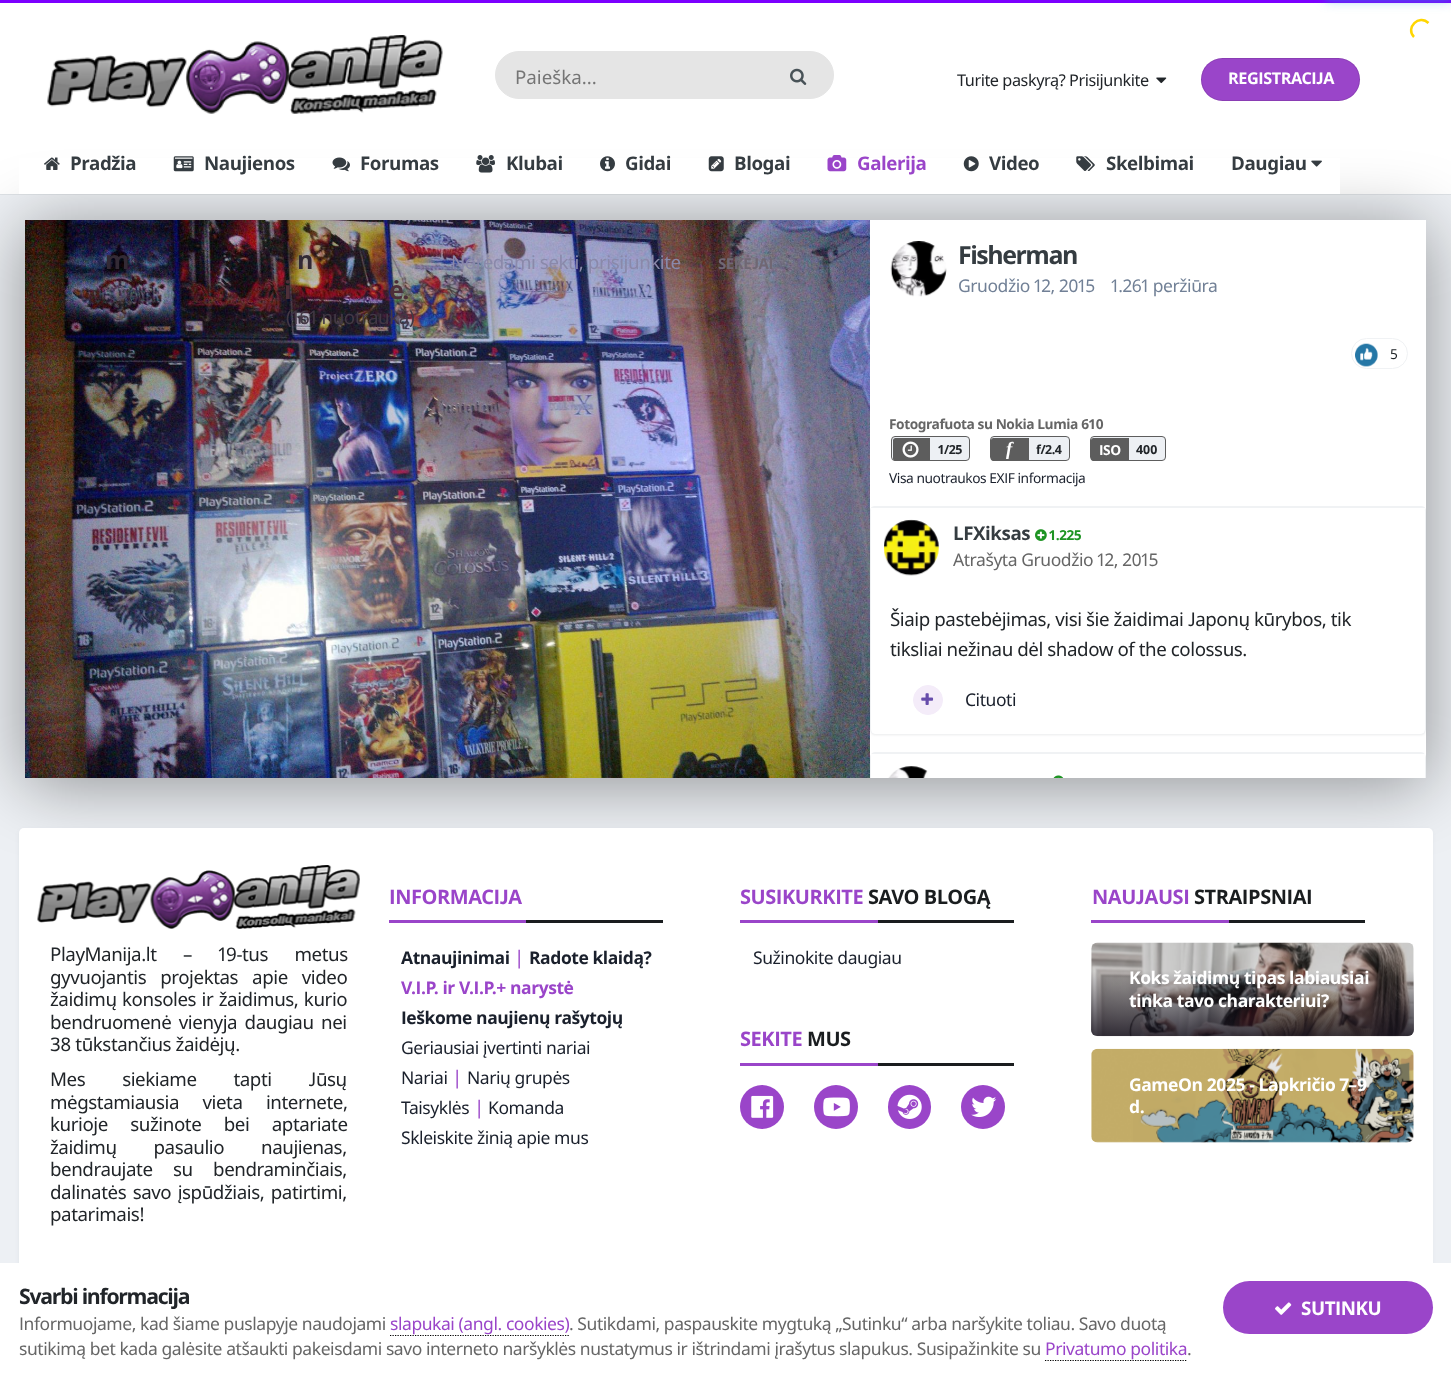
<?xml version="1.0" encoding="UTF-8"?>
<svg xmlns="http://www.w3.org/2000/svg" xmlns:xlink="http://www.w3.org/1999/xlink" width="1451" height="1379">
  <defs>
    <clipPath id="clip1"><rect x="870" y="220" width="556" height="558" /></clipPath>
    <linearGradient id="g1" gradientUnits="userSpaceOnUse" x1="1253" y1="943" x2="1253" y2="1036"><stop offset="0.3" stop-color="#15111d" stop-opacity="0" /><stop offset="1" stop-color="#15111d" stop-opacity="0.8" /></linearGradient>
  </defs>
  <rect width="100%" height="100%" fill="#edf0f4" />
  <rect width="1451" height="3" fill="#7c00ff" />
  <rect y="3" width="1451" height="191" fill="#ffffff" />
  <rect x="1326" y="-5" width="125" height="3" fill="#2299dd" filter="blur(3px)" />
  <rect x="1326" y="-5" width="125" height="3" fill="#2299dd" filter="blur(6.5px)" />
  <path d="M 1414 37 c -9 -9 5 -23.5 14.5 -14" fill="none" stroke="#ffd600" stroke-width="2.5" />
  <image x="47" y="35" width="396" height="79" xlink:href="image1.png" />
  <rect x="495.5" y="51.5" width="338" height="47" rx="23.5" fill="#e5e5e5" stroke="#e5e5e5" />
  <image x="790" y="68" width="17" height="17" xlink:href="image2.png" />
  <image x="1156" y="77" width="11" height="7" xlink:href="image3.png" />
  <rect x="1201" y="58" width="159" height="43" rx="21.5" fill="#9a45c9" />
  <rect x="1201.5" y="58.5" width="158" height="42" rx="21" fill="none" stroke="#000000" stroke-opacity="0.1" />
  <rect y="194" width="1451" height="1" fill="#dee2e6" />
  <rect x="25" y="226" width="1401" height="558" fill="#000000" fill-opacity="0.4" filter="blur(34.5px)" />
  <rect x="19" y="158" width="1321" height="36" fill="#ffffff" />
  <image x="44" y="157" width="16" height="13" xlink:href="image4.png" />
  <image x="173" y="156" width="21" height="16" xlink:href="image5.png" />
  <image x="332" y="157" width="18" height="15" xlink:href="image6.png" />
  <image x="476" y="155" width="19" height="18" xlink:href="image7.png" />
  <image x="600" y="156" width="15" height="16" xlink:href="image8.png" />
  <image x="708" y="156" width="16" height="16" xlink:href="image9.png" />
  <image x="827" y="155" width="20" height="17" xlink:href="image10.png" />
  <image x="963" y="156" width="16" height="16" xlink:href="image11.png" />
  <image x="1076" y="156" width="19" height="15" xlink:href="image12.png" />
  <image x="1311" y="160" width="11" height="7" xlink:href="image13.png" />
  <image x="25" y="220" width="845" height="558" xlink:href="image14.png" />
  <rect x="870" y="220" width="556" height="538" fill="#ffffff" />
  <image x="890" y="241" width="57" height="56" xlink:href="image15.png" />
  <rect x="1351.5" y="338.5" width="56" height="30" rx="15" fill="none" stroke="#f0f2f4" />
  <image x="1355" y="343" width="23" height="24" xlink:href="image16.png" />
  <rect x="891.5" y="436.5" width="78" height="24" rx="3.5" fill="#edf0f4" stroke="#5d5d5d" />
  <path d="M 895.5 438 h 34.5 v 23 h -34.5 c -1.5 0 -2.5 -1 -2.5 -2.5 v -18 c 0 -1.5 1 -2.5 2.5 -2.5 z" fill="#5d5d5d" />
  <image x="902" y="441" width="17" height="17" xlink:href="image17.png" />
  <rect x="990.5" y="436.5" width="79" height="24" rx="3.5" fill="#edf0f4" stroke="#5d5d5d" />
  <path d="M 993.5 438 h 35.5 v 23 h -35.5 c -1.5 0 -2.5 -1 -2.5 -2.5 v -18 c 0 -1.5 1 -2.5 2.5 -2.5 z" fill="#5d5d5d" />
  <rect x="1090.5" y="436.5" width="75" height="24" rx="3.5" fill="#edf0f4" stroke="#5d5d5d" />
  <path d="M 1093.5 438 h 35.5 v 23 h -35.5 c -1.5 0 -2.5 -1 -2.5 -2.5 v -18 c 0 -1.5 1 -2.5 2.5 -2.5 z" fill="#5d5d5d" />
  <rect x="871" y="510" width="554" height="225" rx="4" fill="#2d3748" fill-opacity="0.1" filter="blur(1px)" />
  <rect x="870" y="506" width="556" height="228" rx="5" fill="#ffffff" />
  <path d="M 875 506 h 546 c 3 0 5 2 5 5 v 218 c 0 3 -2 5 -5 5 h -546 c -3 0 -5 -2 -5 -5 v -218 c 0 -3 2 -5 5 -5 z m 0 2 h 546 c 2 0 4 1 4 3 v 218 c 0 3 -2 5 -4 5 h -546 c -2 0 -4 -2 -4 -5 v -218 c 0 -2 2 -3 4 -3 z" fill="#f0f2f4" fill-rule="evenodd" />
  <rect x="871" y="508" width="554" height="2" fill="#ffffff" />
  <image x="884" y="519" width="55" height="57" xlink:href="image18.png" />
  <image x="1035" y="529" width="12" height="12" xlink:href="image19.png" />
  <circle cx="928" cy="700" r="14.5" fill="#f4ecf9" stroke="#f4ecf9" />
  <image x="921" y="693" width="13" height="12" xlink:href="image20.png" />
  <g clip-path="url(#clip1)">
    <path d="M 875 752 h 546 c 3 0 5 3 5 6 v 350 c 0 2 -2 4 -5 4 h -546 c -3 0 -5 -2 -5 -4 v -350 c 0 -3 2 -6 5 -6 z m 0 2 h 546 c 2 0 4 1 4 4 v 350 c 0 2 -2 4 -4 4 h -546 c -2 0 -4 -2 -4 -4 v -350 c 0 -3 2 -4 4 -4 z" fill="#f0f2f4" fill-rule="evenodd" />
  </g>
  <rect x="871" y="754" width="554" height="24" fill="#ffffff" />
  <image x="888" y="766" width="40" height="12" xlink:href="image21.png" />
  <image x="1053" y="775" width="11" height="3" xlink:href="image22.png" />
  <rect x="20" y="831" width="1411" height="445" rx="4" fill="#2d3748" fill-opacity="0.1" filter="blur(2.5px)" />
  <rect x="19" y="828" width="1414" height="447" rx="5" fill="#ffffff" />
  <image x="37" y="865" width="323" height="64" xlink:href="image23.png" />
  <rect x="526" y="920" width="137" height="3" fill="#1a1d1f" />
  <rect x="389" y="920" width="137" height="3" fill="#9a45c9" />
  <rect x="878" y="920" width="136" height="3" fill="#1a1d1f" />
  <rect x="740" y="920" width="138" height="3" fill="#9a45c9" />
  <rect x="878" y="1063" width="136" height="3" fill="#1a1d1f" />
  <rect x="740" y="1063" width="138" height="3" fill="#9a45c9" />
  <circle cx="762" cy="1107" r="22" fill="#9a45c9" />
  <image x="751" y="1095" width="23" height="23" xlink:href="image24.png" />
  <circle cx="836" cy="1107" r="22" fill="#9a45c9" />
  <image x="823" y="1097" width="27" height="20" xlink:href="image25.png" />
  <rect x="888" y="1085" width="43" height="44" rx="21.5" fill="#9a45c9" />
  <image x="897" y="1094" width="25" height="25" xlink:href="image26.png" />
  <circle cx="983" cy="1107" r="22" fill="#9a45c9" />
  <image x="971" y="1096" width="26" height="21" xlink:href="image27.png" />
  <rect x="1229" y="920" width="136" height="3" fill="#1a1d1f" />
  <rect x="1091" y="920" width="138" height="3" fill="#9a45c9" />
  <image x="1091" y="942" width="323" height="95" xlink:href="image28.png" />
  <rect x="1091" y="943" width="323" height="93" rx="6" fill="url(#g1)" />
  <image x="1091" y="1048" width="323" height="95" xlink:href="image29.png" />
  <rect y="1263" width="1451" height="116" fill="#ffffff" />
  <path d="M 390 1335.5 h 179" fill="none" stroke="#000000" stroke-width="1.2" stroke-dasharray="1.25 1.25" />
  <path d="M 1045 1360.5 h 142.5" fill="none" stroke="#000000" stroke-width="1.2" stroke-dasharray="1.25 1.25" />
  <rect x="1223" y="1281" width="210" height="53" rx="26.5" fill="#9a45c9" />
  <image x="1275" y="1302" width="17" height="13" xlink:href="image30.png" />
  <text x="515" y="84" style="font-family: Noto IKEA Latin; font-size: 18.75px; fill: #757575">Paieška...</text>
  <text x="957" y="86" style="font-family: Noto IKEA Latin; font-size: 16.25px; letter-spacing: -0.44px; fill: #212529">Turite paskyrą? Prisijunkite</text>
  <text x="1228" y="84" style="font-family: Noto IKEA Latin; font-size: 16.25px; font-weight: bold; letter-spacing: -0.44px; fill: #ffffff">REGISTRACIJA</text>
  <text x="70" y="170" style="font-family: Noto IKEA Latin; font-size: 18.75px; font-weight: bold; letter-spacing: -0.44px; fill: #353c41">Pradžia</text>
  <text x="204" y="170" style="font-family: Noto IKEA Latin; font-size: 18.75px; font-weight: bold; letter-spacing: -0.44px; fill: #353c41">Naujienos</text>
  <text x="360" y="170" style="font-family: Noto IKEA Latin; font-size: 18.75px; font-weight: bold; letter-spacing: -0.44px; fill: #353c41">Forumas</text>
  <text x="506" y="170" style="font-family: Noto IKEA Latin; font-size: 18.75px; font-weight: bold; letter-spacing: -0.44px; fill: #353c41">Klubai</text>
  <text x="625" y="170" style="font-family: Noto IKEA Latin; font-size: 18.75px; font-weight: bold; letter-spacing: -0.44px; fill: #353c41">Gidai</text>
  <text x="734" y="170" style="font-family: Noto IKEA Latin; font-size: 18.75px; font-weight: bold; letter-spacing: -0.44px; fill: #353c41">Blogai</text>
  <text x="857" y="170" style="font-family: Noto IKEA Latin; font-size: 18.75px; font-weight: bold; letter-spacing: -0.44px; fill: #9a45c9">Galerija</text>
  <text x="989" y="170" style="font-family: Noto IKEA Latin; font-size: 18.75px; font-weight: bold; letter-spacing: -0.44px; fill: #353c41">Video</text>
  <text x="1106" y="170" style="font-family: Noto IKEA Latin; font-size: 18.75px; font-weight: bold; letter-spacing: -0.44px; fill: #353c41">Skelbimai</text>
  <text x="1231" y="170" style="font-family: Noto IKEA Latin; font-size: 18.75px; font-weight: bold; letter-spacing: -0.44px; fill: #353c41">Daugiau</text>
  <text x="105" y="269" style="font-family: Noto IKEA Latin; font-size: 25px; font-weight: bold; letter-spacing: -1.5px; fill: #332a35">m</text>
  <text x="297" y="269" style="font-family: Noto IKEA Latin; font-size: 25px; font-weight: bold; letter-spacing: -1.5px; fill: #332a35">n</text>
  <text x="284" y="299" style="font-family: Noto IKEA Latin; font-size: 25px; font-weight: bold; letter-spacing: -1.5px; fill: #4d2f39">i</text>
  <text x="389" y="299" style="font-family: Noto IKEA Latin; font-size: 25px; font-weight: bold; letter-spacing: -1.5px; fill: #4d2f39">ė.</text>
  <text x="286" y="324" style="font-family: Noto IKEA Latin; font-size: 18.75px; letter-spacing: -0.44px; fill: #423845">(161 nuotrauka)</text>
  <text x="451" y="269" style="font-family: Noto IKEA Latin; font-size: 18.75px; letter-spacing: -0.44px; fill: #8a89aa">Norėdami sekti, prisijunkite</text>
  <text x="718" y="269" style="font-family: Noto IKEA Latin; font-size: 15px; font-weight: bold; letter-spacing: -0.44px; fill: #706773">SEKĖJAI</text>
  <text x="958" y="264" style="font-family: Noto IKEA Latin; font-size: 25px; font-weight: bold; letter-spacing: -1.5px; fill: #353c41">Fisherman</text>
  <text x="958" y="292" style="font-family: Noto IKEA Latin; font-size: 17.5px; letter-spacing: -0.44px; fill: #718096">Gruodžio 12, 2015</text>
  <text x="1111" y="292" style="font-family: Noto IKEA Latin; font-size: 17.5px; letter-spacing: -0.44px; fill: #718096">1.261 peržiūra</text>
  <text x="1390" y="359" style="font-family: Noto IKEA Latin; font-size: 13.75px; letter-spacing: -0.44px; fill: #212529">5</text>
  <text x="889" y="429" style="font-family: Noto IKEA Latin; font-size: 13.75px; font-weight: bold; letter-spacing: -0.44px; fill: #666666">Fotografuota su Nokia Lumia 610</text>
  <text x="938" y="454" style="font-family: Noto IKEA Latin; font-size: 12.5px; font-weight: bold; letter-spacing: -0.44px; fill: #212529">1/25</text>
  <text x="1006" y="455" style="font-family: Liberation Serif; font-size: 18.75px; font-weight: bold; font-style: italic; letter-spacing: -0.44px; fill: #ffffff">f</text>
  <text x="1036" y="454" style="font-family: Noto IKEA Latin; font-size: 12.5px; font-weight: bold; letter-spacing: -0.44px; fill: #212529">f/2.4</text>
  <text x="1099" y="455" style="font-family: Noto IKEA Latin; font-size: 13.75px; font-weight: bold; letter-spacing: -0.44px; fill: #ffffff">ISO</text>
  <text x="1136" y="454" style="font-family: Noto IKEA Latin; font-size: 12.5px; font-weight: bold; letter-spacing: -0.44px; fill: #212529">400</text>
  <text x="889" y="483" style="font-family: Noto IKEA Latin; font-size: 13.75px; letter-spacing: -0.44px; fill: #1a202c">Visa nuotraukos EXIF informacija</text>
  <text x="953" y="540" style="font-family: Noto IKEA Latin; font-size: 18.75px; font-weight: bold; letter-spacing: -0.44px; fill: #353c41">LFXiksas</text>
  <text x="1049" y="540" style="font-family: Noto IKEA Latin; font-size: 13.75px; font-weight: bold; letter-spacing: -0.44px; fill: #1e9423">1.225</text>
  <text x="953" y="566" style="font-family: Noto IKEA Latin; font-size: 17.5px; letter-spacing: -0.44px; fill: #666666">Atrašyta Gruodžio 12, 2015</text>
  <text x="890" y="626" style="font-family: Noto IKEA Latin; font-size: 18.75px; letter-spacing: -0.44px; fill: #212529">Šiaip pastebėjimas, visi šie žaidimai Japonų kūrybos, tik</text>
  <text x="890" y="656" style="font-family: Noto IKEA Latin; font-size: 18.75px; letter-spacing: -0.44px; fill: #212529">tiksliai nežinau dėl shadow of the colossus.</text>
  <text x="965" y="706" style="font-family: Noto IKEA Latin; font-size: 17.5px; letter-spacing: -0.44px; fill: #1a202c">Cituoti</text>
  <text x="50" y="961" word-spacing="22" style="font-family: Noto IKEA Latin; font-size: 18.75px; letter-spacing: -0.44px; fill: #212529">PlayManija.lt – 19-tus metus</text>
  <text x="50" y="984" word-spacing="9.5" style="font-family: Noto IKEA Latin; font-size: 18.75px; letter-spacing: -0.44px; fill: #212529">gyvuojantis projektas apie video</text>
  <text x="50" y="1006" word-spacing="1" style="font-family: Noto IKEA Latin; font-size: 18.75px; letter-spacing: -0.44px; fill: #212529">žaidimų konsoles ir žaidimus, kurio</text>
  <text x="50" y="1029" word-spacing="3" style="font-family: Noto IKEA Latin; font-size: 18.75px; letter-spacing: -0.44px; fill: #212529">bendruomenė vienyja daugiau nei</text>
  <text x="50" y="1051" style="font-family: Noto IKEA Latin; font-size: 18.75px; letter-spacing: -0.44px; fill: #212529">38 tūkstančius žaidėjų.</text>
  <text x="50" y="1086" word-spacing="32.5" style="font-family: Noto IKEA Latin; font-size: 18.75px; letter-spacing: -0.44px; fill: #212529">Mes siekiame tapti Jūsų</text>
  <text x="50" y="1109" word-spacing="19" style="font-family: Noto IKEA Latin; font-size: 18.75px; letter-spacing: -0.44px; fill: #212529">mėgstamiausia vieta internete,</text>
  <text x="50" y="1131" word-spacing="18" style="font-family: Noto IKEA Latin; font-size: 18.75px; letter-spacing: -0.44px; fill: #212529">kurioje sužinote bei aptariate</text>
  <text x="50" y="1154" word-spacing="32.5" style="font-family: Noto IKEA Latin; font-size: 18.75px; letter-spacing: -0.44px; fill: #212529">žaidimų pasaulio naujienas,</text>
  <text x="50" y="1176" word-spacing="16" style="font-family: Noto IKEA Latin; font-size: 18.75px; letter-spacing: -0.44px; fill: #212529">bendraujate su bendraminčiais,</text>
  <text x="50" y="1199" word-spacing="2" style="font-family: Noto IKEA Latin; font-size: 18.75px; letter-spacing: -0.44px; fill: #212529">dalinatės savo įspūdžiais, patirtimi,</text>
  <text x="50" y="1221" style="font-family: Noto IKEA Latin; font-size: 18.75px; letter-spacing: -0.44px; fill: #212529">patarimais!</text>
  <text x="389" y="904" style="font-family: Noto IKEA Latin; font-size: 20px; font-weight: bold; letter-spacing: -0.44px; fill: #9a45c9">INFORMACIJA</text>
  <text x="401" y="964" style="font-family: Noto IKEA Latin; font-size: 17.5px; font-weight: bold; letter-spacing: -0.44px; fill: #1a202c">Atnaujinimai</text>
  <text x="514" y="964" style="font-family: Noto IKEA Latin; font-size: 18.75px; letter-spacing: -0.44px; fill: #9a45c9">|</text>
  <text x="529" y="964" style="font-family: Noto IKEA Latin; font-size: 17.5px; font-weight: bold; letter-spacing: -0.44px; fill: #1a202c">Radote klaidą?</text>
  <text x="401" y="994" style="font-family: Noto IKEA Latin; font-size: 17.5px; font-weight: bold; letter-spacing: -0.44px; fill: #9a45c9">V.I.P. ir V.I.P.+ narystė</text>
  <text x="401" y="1024" style="font-family: Noto IKEA Latin; font-size: 17.5px; font-weight: bold; letter-spacing: -0.44px; fill: #1a202c">Ieškome naujienų rašytojų</text>
  <text x="401" y="1054" style="font-family: Noto IKEA Latin; font-size: 17.5px; letter-spacing: -0.44px; fill: #1a202c">Geriausiai įvertinti nariai</text>
  <text x="401" y="1084" style="font-family: Noto IKEA Latin; font-size: 17.5px; letter-spacing: -0.44px; fill: #1a202c">Nariai</text>
  <text x="452" y="1084" style="font-family: Noto IKEA Latin; font-size: 18.75px; letter-spacing: -0.44px; fill: #9a45c9">|</text>
  <text x="467" y="1084" style="font-family: Noto IKEA Latin; font-size: 17.5px; letter-spacing: -0.44px; fill: #1a202c">Narių grupės</text>
  <text x="401" y="1114" style="font-family: Noto IKEA Latin; font-size: 17.5px; letter-spacing: -0.44px; fill: #1a202c">Taisyklės</text>
  <text x="474" y="1114" style="font-family: Noto IKEA Latin; font-size: 18.75px; letter-spacing: -0.44px; fill: #9a45c9">|</text>
  <text x="488" y="1114" style="font-family: Noto IKEA Latin; font-size: 17.5px; letter-spacing: -0.44px; fill: #1a202c">Komanda</text>
  <text x="401" y="1144" style="font-family: Noto IKEA Latin; font-size: 17.5px; letter-spacing: -0.44px; fill: #1a202c">Skleiskite žinią apie mus</text>
  <text x="740" y="904" style="font-family: Noto IKEA Latin; font-size: 20px; font-weight: bold; letter-spacing: -0.44px; fill: #9a45c9">SUSIKURKITE</text>
  <text x="868" y="904" style="font-family: Noto IKEA Latin; font-size: 20px; font-weight: bold; letter-spacing: -0.44px; fill: #1a1d1f">SAVO BLOGĄ</text>
  <text x="753" y="964" style="font-family: Noto IKEA Latin; font-size: 17.5px; letter-spacing: -0.44px; fill: #1a202c">Sužinokite daugiau</text>
  <text x="740" y="1046" style="font-family: Noto IKEA Latin; font-size: 20px; font-weight: bold; letter-spacing: -0.44px; fill: #9a45c9">SEKITE</text>
  <text x="807" y="1046" style="font-family: Noto IKEA Latin; font-size: 20px; font-weight: bold; letter-spacing: -0.44px; fill: #1a1d1f">MUS</text>
  <text x="1092" y="904" style="font-family: Noto IKEA Latin; font-size: 20px; font-weight: bold; letter-spacing: -0.44px; fill: #9a45c9">NAUJAUSI</text>
  <text x="1194" y="904" style="font-family: Noto IKEA Latin; font-size: 20px; font-weight: bold; letter-spacing: -0.44px; fill: #1a1d1f">STRAIPSNIAI</text>
  <text x="1129" y="984" style="font-family: Noto IKEA Latin; font-size: 17.5px; font-weight: bold; letter-spacing: -0.44px; fill: #ffffff">Koks žaidimų tipas labiausiai</text>
  <text x="1129" y="1007" style="font-family: Noto IKEA Latin; font-size: 17.5px; font-weight: bold; letter-spacing: -0.44px; fill: #ffffff">tinka tavo charakteriui?</text>
  <text x="1129" y="1091" style="font-family: Noto IKEA Latin; font-size: 17.5px; font-weight: bold; letter-spacing: -0.44px; fill: #ffffff">GameOn 2025 - Lapkričio 7–9</text>
  <text x="1129" y="1113" style="font-family: Noto IKEA Latin; font-size: 17.5px; font-weight: bold; letter-spacing: -0.44px; fill: #ffffff">d.</text>
  <text x="19" y="1304" style="font-family: Noto IKEA Latin; font-size: 21.25px; font-weight: bold; letter-spacing: -1.3px; fill: #212529">Svarbi informacija</text>
  <text x="19" y="1330" style="font-family: Noto IKEA Latin; font-size: 17.5px; letter-spacing: -0.44px; fill: #666666">Informuojame, kad šiame puslapyje naudojami</text>
  <text x="390" y="1330" style="font-family: Noto IKEA Latin; font-size: 17.5px; letter-spacing: -0.44px; fill: #9a45c9">slapukai (angl. cookies)</text>
  <text x="569" y="1330" style="font-family: Noto IKEA Latin; font-size: 17.5px; letter-spacing: -0.44px; fill: #666666">. Sutikdami, paspauskite mygtuką „Sutinku“ arba naršykite toliau. Savo duotą</text>
  <text x="19" y="1355" style="font-family: Noto IKEA Latin; font-size: 17.5px; letter-spacing: -0.44px; fill: #666666">sutikimą bet kada galėsite atšaukti pakeisdami savo interneto naršyklės nustatymus ir ištrindami įrašytus slapukus. Susipažinkite su</text>
  <text x="1045" y="1355" style="font-family: Noto IKEA Latin; font-size: 17.5px; letter-spacing: -0.44px; fill: #9a45c9">Privatumo politika</text>
  <text x="1187" y="1355" style="font-family: Noto IKEA Latin; font-size: 17.5px; letter-spacing: -0.44px; fill: #666666">.</text>
  <text x="1301" y="1315" style="font-family: Noto IKEA Latin; font-size: 18.75px; font-weight: bold; letter-spacing: -0.44px; fill: #ffffff">SUTINKU</text>
</svg>
